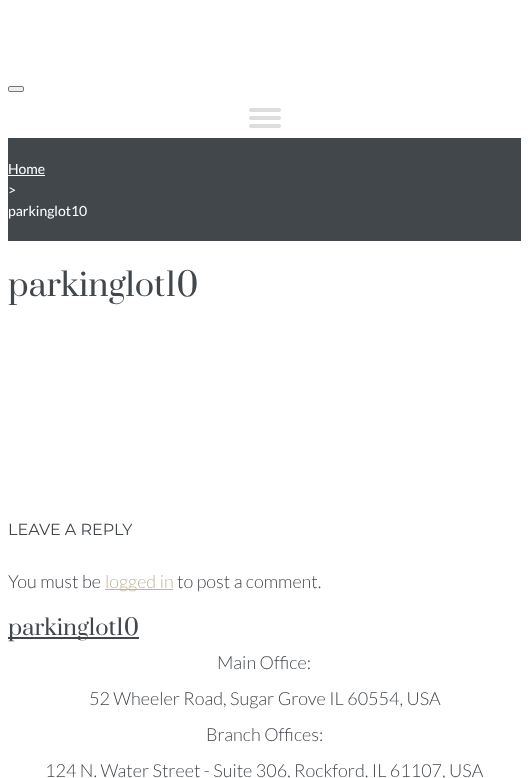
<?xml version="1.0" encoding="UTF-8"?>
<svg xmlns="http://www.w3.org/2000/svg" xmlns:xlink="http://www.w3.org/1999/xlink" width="529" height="778">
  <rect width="100%" height="100%" fill="#ffffff" />
  <rect x="8.5" y="86.5" width="15" height="5" rx="1.5" fill="#efefef" stroke="#767676" />
  <rect x="249" y="108" width="32" height="4" rx="2" fill="#dddddd" />
  <rect x="249" y="116" width="32" height="4" rx="2" fill="#dddddd" />
  <rect x="249" y="124" width="32" height="4" rx="2" fill="#dddddd" />
  <rect x="8" y="138" width="513" height="103" fill="#42474c" />
  <rect x="8" y="175" width="37" height="1" fill="#ffffff" />
  <rect x="105" y="589" width="68" height="1" fill="#c2b697" />
  <rect x="8" y="637" width="131" height="2" fill="#42474c" />
  <text x="8" y="174" style="font-family: Lato; font-size: 14px; fill: #ffffff">Home</text>
  <text x="8" y="195" style="font-family: Lato; font-size: 14px; fill: #ffffff">&gt;</text>
  <text x="8" y="216" style="font-family: Lato; font-size: 14px; fill: #ffffff">parkinglot10</text>
  <text x="8" y="296" style="font-family: Prata; font-size: 32px; fill: #42474c">parkinglot10</text>
  <text x="8" y="535" style="font-family: Montserrat; font-size: 16px; font-weight: 100; fill: #42474c">LEAVE A REPLY</text>
  <text x="8" y="588" style="font-family: Lato; font-size: 18px; font-weight: 300; fill: #42474c">You must be</text>
  <text x="105" y="588" style="font-family: Lato; font-size: 18px; font-weight: 300; fill: #c2b697">logged in</text>
  <text x="177" y="588" style="font-family: Lato; font-size: 18px; font-weight: 300; fill: #42474c">to post a comment.</text>
  <text x="8" y="635" style="font-family: Prata; font-size: 22px; fill: #42474c">parkinglot10</text>
  <text x="217" y="669" style="font-family: Lato; font-size: 18px; font-weight: 300; fill: #42474c">Main Office:</text>
  <text x="89" y="705" style="font-family: Lato; font-size: 18px; font-weight: 300; fill: #42474c">52 Wheeler Road, Sugar Grove IL 60554, USA</text>
  <text x="206" y="741" style="font-family: Lato; font-size: 18px; font-weight: 300; fill: #42474c">Branch Offices:</text>
  <text x="45" y="777" style="font-family: Lato; font-size: 18px; font-weight: 300; fill: #42474c">124 N. Water Street - Suite 306, Rockford, IL 61107, USA</text>
</svg>
